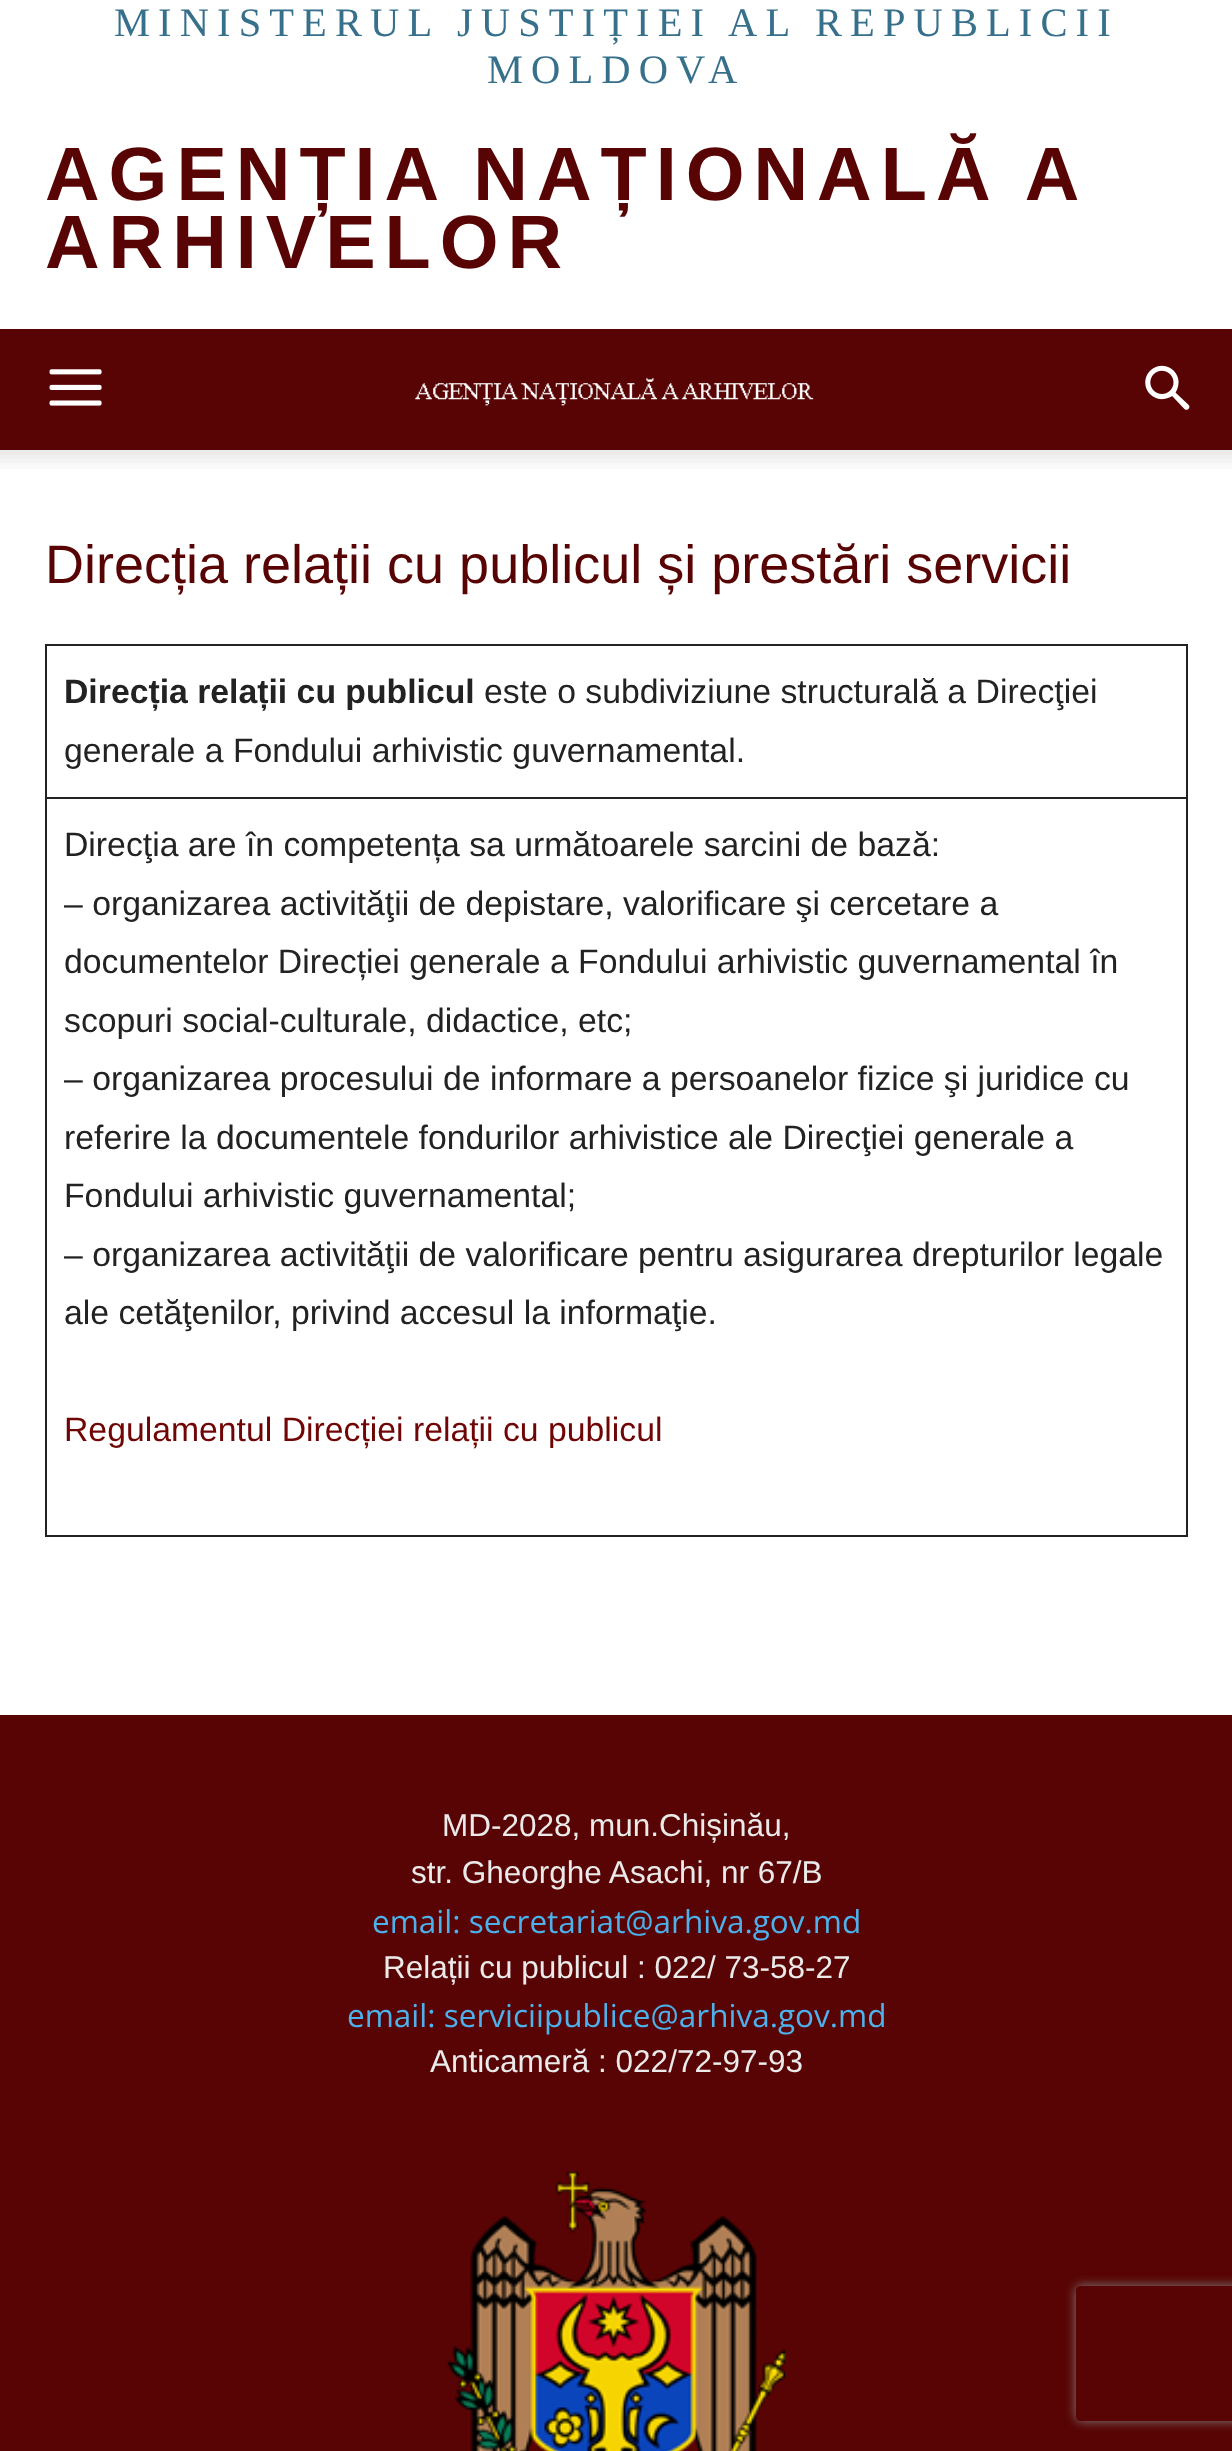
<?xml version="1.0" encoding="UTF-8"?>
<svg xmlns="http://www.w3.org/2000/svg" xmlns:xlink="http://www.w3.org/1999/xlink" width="1232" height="2451">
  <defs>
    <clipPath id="clip1"><path d="M 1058 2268 h 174 v 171 h -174 z m 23 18 h 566 c 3 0 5 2 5 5 v 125 c 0 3 -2 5 -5 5 h -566 c -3 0 -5 -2 -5 -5 v -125 c 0 -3 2 -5 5 -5 z" clip-rule="evenodd" /></clipPath>
  </defs>
  <rect width="100%" height="100%" fill="#ffffff" />
  <rect y="329" width="1232" height="121" fill="#580404" />
  <image x="49" y="369" width="53" height="37" xlink:href="image1.png" />
  <image x="415" y="378" width="399" height="28" xlink:href="image2.png" />
  <image x="1145" y="365" width="45" height="45" xlink:href="image3.png" />
  <image x="0" y="450" width="1232" height="19" xlink:href="image4.png" />
  <rect x="45" y="644" width="1143" height="2" fill="#222222" />
  <rect x="45" y="797" width="1143" height="2" fill="#222222" />
  <rect x="1186" y="797" width="2" height="740" fill="#222222" />
  <rect x="1186" y="644" width="2" height="155" fill="#222222" />
  <rect x="45" y="1535" width="1143" height="2" fill="#222222" />
  <rect x="45" y="797" width="2" height="740" fill="#222222" />
  <rect x="45" y="644" width="2" height="155" fill="#222222" />
  <rect y="1715" width="1232" height="736" fill="#580404" />
  <image x="447" y="2171" width="339" height="280" xlink:href="image5.png" />
  <g clip-path="url(#clip1)">
    <rect x="1076" y="2286" width="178" height="135" rx="5" fill="#808080" filter="blur(5.5px)" />
  </g>
  <text x="114" y="36" style="font-family: Liberation Serif; font-size: 40.5px; letter-spacing: 8.1px; fill: #37708b">MINISTERUL JUSTIȚIEI AL REPUBLICII</text>
  <text x="487" y="83" style="font-family: Liberation Serif; font-size: 40.5px; letter-spacing: 8.1px; fill: #37708b">MOLDOVA</text>
  <text x="45" y="200" word-spacing="-2" style="font-family: Liberation Sans; font-size: 75.6px; font-weight: bold; letter-spacing: 9px; fill: #580404">AGENȚIA NAȚIONALĂ A</text>
  <text x="45" y="268" style="font-family: Liberation Sans; font-size: 75.6px; font-weight: bold; letter-spacing: 9px; fill: #580404">ARHIVELOR</text>
  <text x="45" y="583" style="font-family: Liberation Sans; font-size: 54px; fill: #580404">Direcția relații cu publicul și prestări servicii</text>
  <text x="64" y="703" style="font-family: Liberation Sans; font-size: 33.75px; font-weight: bold; fill: #222222">Direcția relații cu publicul</text>
  <text x="484" y="703" style="font-family: Liberation Sans; font-size: 33.75px; fill: #222222">este o subdiviziune structurală a Direcţiei</text>
  <text x="64" y="762" style="font-family: Liberation Sans; font-size: 33.75px; fill: #222222">generale a Fondului arhivistic guvernamental.</text>
  <text x="64" y="856" style="font-family: Liberation Sans; font-size: 33.75px; fill: #222222">Direcţia are în competența sa următoarele sarcini de bază:</text>
  <text x="64" y="915" style="font-family: Liberation Sans; font-size: 33.75px; fill: #222222">– organizarea activităţii de depistare, valorificare şi cercetare a</text>
  <text x="64" y="973" style="font-family: Liberation Sans; font-size: 33.75px; fill: #222222">documentelor Direcției generale a Fondului arhivistic guvernamental în</text>
  <text x="64" y="1032" style="font-family: Liberation Sans; font-size: 33.75px; fill: #222222">scopuri social-culturale, didactice, etc;</text>
  <text x="64" y="1090" style="font-family: Liberation Sans; font-size: 33.75px; fill: #222222">– organizarea procesului de informare a persoanelor fizice şi juridice cu</text>
  <text x="64" y="1149" style="font-family: Liberation Sans; font-size: 33.75px; fill: #222222">referire la documentele fondurilor arhivistice ale Direcţiei generale a</text>
  <text x="64" y="1207" style="font-family: Liberation Sans; font-size: 33.75px; fill: #222222">Fondului arhivistic guvernamental;</text>
  <text x="64" y="1266" style="font-family: Liberation Sans; font-size: 33.75px; fill: #222222">– organizarea activităţii de valorificare pentru asigurarea drepturilor legale</text>
  <text x="64" y="1324" style="font-family: Liberation Sans; font-size: 33.75px; fill: #222222">ale cetăţenilor, privind accesul la informaţie.</text>
  <text x="64" y="1441" style="font-family: Liberation Sans; font-size: 33.75px; fill: #700505">Regulamentul Direcției relații cu publicul</text>
  <text x="442" y="1836" style="font-family: Liberation Sans; font-size: 31.5px; fill: #eaeaea">MD-2028, mun.Chișinău,</text>
  <text x="411" y="1883" style="font-family: Liberation Sans; font-size: 31.5px; fill: #eaeaea">str. Gheorghe Asachi, nr 67/B</text>
  <text x="372" y="1933" style="font-family: Open Sans; font-size: 31.5px; fill: #4db2ec">email: secretariat@arhiva.gov.md</text>
  <text x="383" y="1978" style="font-family: Liberation Sans; font-size: 31.5px; fill: #eaeaea">Relații cu publicul : 022/ 73-58-27</text>
  <text x="347" y="2027" style="font-family: Open Sans; font-size: 31.5px; fill: #4db2ec">email: serviciipublice@arhiva.gov.md</text>
  <text x="430" y="2072" style="font-family: Liberation Sans; font-size: 31.5px; fill: #eaeaea">Anticameră : 022/72-97-93</text>
</svg>
